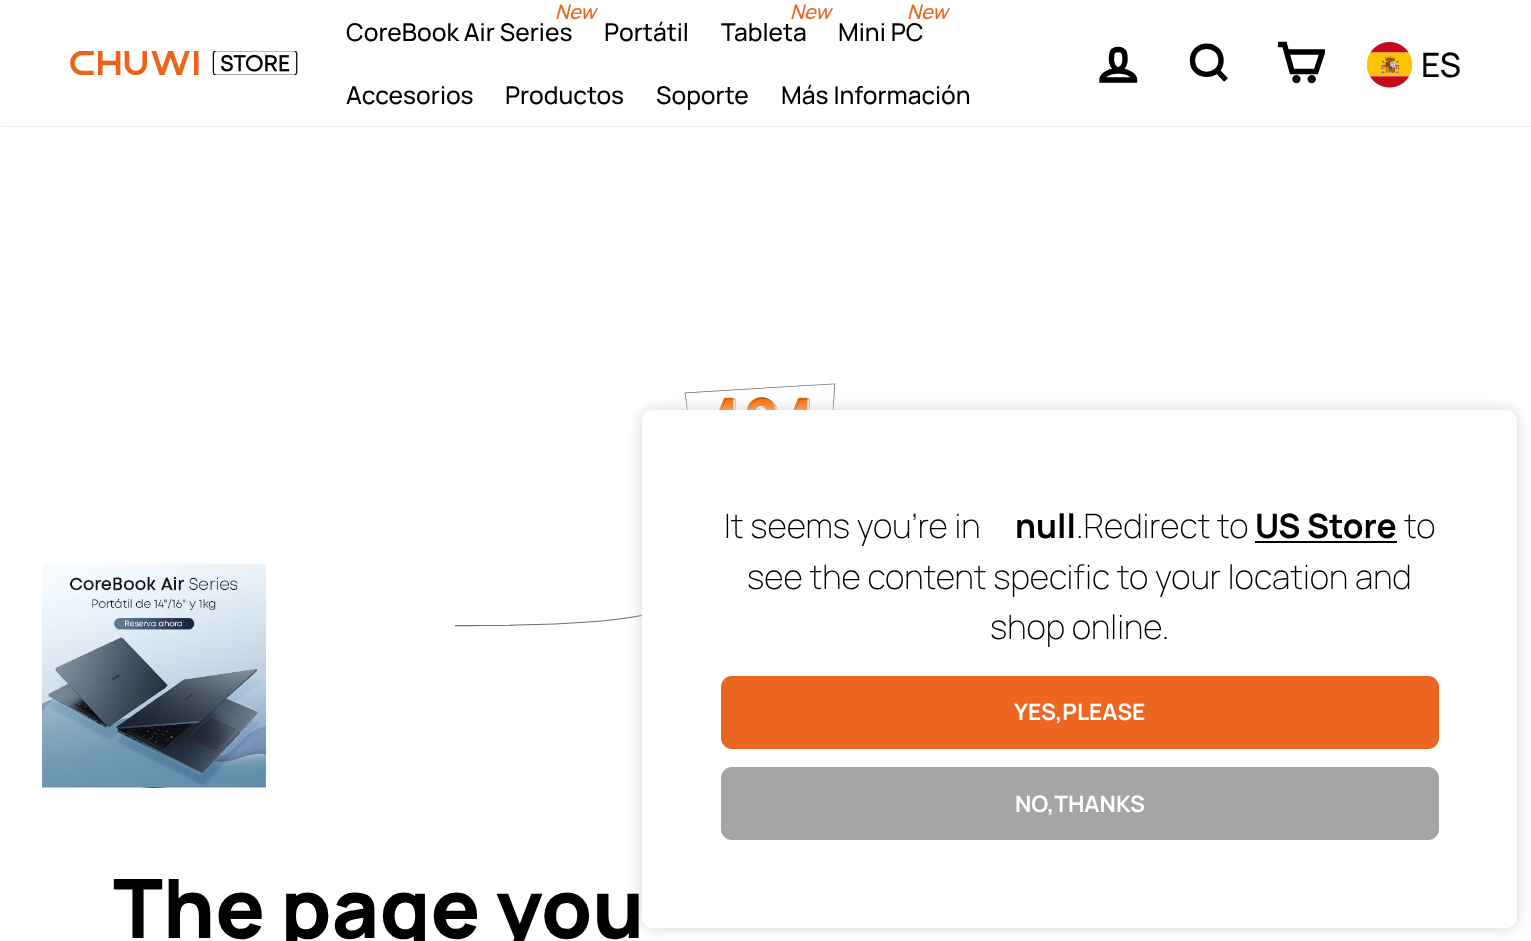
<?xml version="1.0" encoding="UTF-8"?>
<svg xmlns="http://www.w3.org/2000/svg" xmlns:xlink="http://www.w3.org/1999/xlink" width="1531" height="941">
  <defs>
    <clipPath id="clip1"><rect x="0" y="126" width="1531" height="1" /></clipPath>
    <clipPath id="clip2"><rect x="1276" y="39" width="49" height="49" /></clipPath>
  </defs>
  <rect width="100%" height="100%" fill="#ffffff" />
  <g clip-path="url(#clip1)">
    <rect width="1531" height="126" fill="#000000" fill-opacity="0.2" filter="blur(1px)" />
  </g>
  <image x="70" y="51" width="228" height="24" xlink:href="image1.png" />
  <path d="M 1120.5 71 v -2 c 2.5 -1.5 4.5 -5.5 4.5 -9 c 0 -6 0 -10.5 -7 -10.5 c -6.5 0 -6.5 4.5 -6.5 10.5 c 0 3.5 2 7.5 4.5 9 v 2 c -8 0.5 -14 4.5 -14 9 h 32.5 c 0 -4.5 -6 -8.5 -14 -9 z" fill="none" stroke="#000000" stroke-width="5.4" />
  <path d="M 1221 60.5 c 0 18.5 -28.5 18.5 -28.5 0 c 0 -19 28.5 -19 28.5 0 z m 5 19.5 l -9 -9.5" fill="none" stroke="#000000" stroke-width="5.4" />
  <g clip-path="url(#clip2)">
    <path d="M 1286.5 52 h 36 l -6.5 19.5 h -24 l -7.5 -27 h -6.5" fill="none" stroke="#000000" stroke-width="5.4" />
  </g>
  <circle cx="1296.4" cy="79.1" r="1.5" fill="#000000" stroke="#000000" stroke-width="5.4" />
  <circle cx="1311.7" cy="79.1" r="1.5" fill="#000000" stroke="#000000" stroke-width="5.4" />
  <image x="1367" y="42" width="45" height="46" xlink:href="image2.png" />
  <image x="455" y="383" width="381" height="244" xlink:href="image3.png" />
  <rect x="642" y="410" width="875" height="518" rx="11" fill="#d7d5d5" filter="blur(7px)" />
  <rect x="642" y="410" width="875" height="518" rx="11" fill="#ffffff" />
  <rect x="1255" y="541" width="142" height="2" fill="#000000" />
  <rect x="721" y="676" width="718" height="73" rx="11" fill="#ec6521" />
  <rect x="721" y="767" width="718" height="73" rx="11" fill="#a5a5a5" />
  <circle cx="154" cy="676" r="112" fill="#000000" />
  <image x="42" y="563" width="224" height="225" xlink:href="image4.png" />
  <text x="555" y="19" style="font-family: Manrope; font-size: 20px; font-weight: 500; font-style: italic; fill: #ec6521">New</text>
  <text x="346" y="41" style="font-family: Manrope; font-size: 24.5px; font-weight: 500; fill: #000000">CoreBook Air Series</text>
  <text x="604" y="41" style="font-family: Manrope; font-size: 24.5px; font-weight: 500; fill: #000000">Portátil</text>
  <text x="790" y="19" style="font-family: Manrope; font-size: 20px; font-weight: 500; font-style: italic; fill: #ec6521">New</text>
  <text x="721" y="41" style="font-family: Manrope; font-size: 24.5px; font-weight: 500; fill: #000000">Tableta</text>
  <text x="907" y="19" style="font-family: Manrope; font-size: 20px; font-weight: 500; font-style: italic; fill: #ec6521">New</text>
  <text x="838" y="41" style="font-family: Manrope; font-size: 24.5px; font-weight: 500; fill: #000000">Mini PC</text>
  <text x="346" y="104" style="font-family: Manrope; font-size: 24.5px; font-weight: 500; fill: #000000">Accesorios</text>
  <text x="505" y="104" style="font-family: Manrope; font-size: 24.5px; font-weight: 500; fill: #000000">Productos</text>
  <text x="656" y="104" style="font-family: Manrope; font-size: 24.5px; font-weight: 500; fill: #000000">Soporte</text>
  <text x="781" y="104" style="font-family: Manrope; font-size: 24.5px; font-weight: 500; fill: #000000">Más Información</text>
  <text x="1421" y="77" style="font-family: Manrope; font-size: 33.6px; font-weight: 500; fill: #000000">ES</text>
  <text x="724" y="538" style="font-family: Manrope; font-size: 33.6px; font-weight: 200; fill: #000000">It seems you're in</text>
  <text x="1015" y="538" style="font-family: Manrope; font-size: 33.6px; font-weight: bold; fill: #000000">null</text>
  <text x="1076" y="538" style="font-family: Manrope; font-size: 33.6px; font-weight: 200; fill: #000000">.Redirect to</text>
  <text x="1255" y="538" style="font-family: Manrope; font-size: 33.6px; font-weight: bold; fill: #000000">US Store</text>
  <text x="1404" y="538" style="font-family: Manrope; font-size: 33.6px; font-weight: 200; fill: #000000">to</text>
  <text x="747" y="589" style="font-family: Manrope; font-size: 33.6px; font-weight: 200; fill: #000000">see the content specific to your location and</text>
  <text x="990" y="639" style="font-family: Manrope; font-size: 33.6px; font-weight: 200; fill: #000000">shop online.</text>
  <text x="1014" y="720" style="font-family: Manrope; font-size: 22.75px; font-weight: bold; fill: #ffffff">YES,PLEASE</text>
  <text x="1015" y="812" style="font-family: Manrope; font-size: 22.75px; font-weight: bold; fill: #ffffff">NO,THANKS</text>
  <text x="113" y="938" word-spacing="-1" style="font-family: Manrope; font-size: 82px; font-weight: 800; fill: #000000">The page you</text>
</svg>
